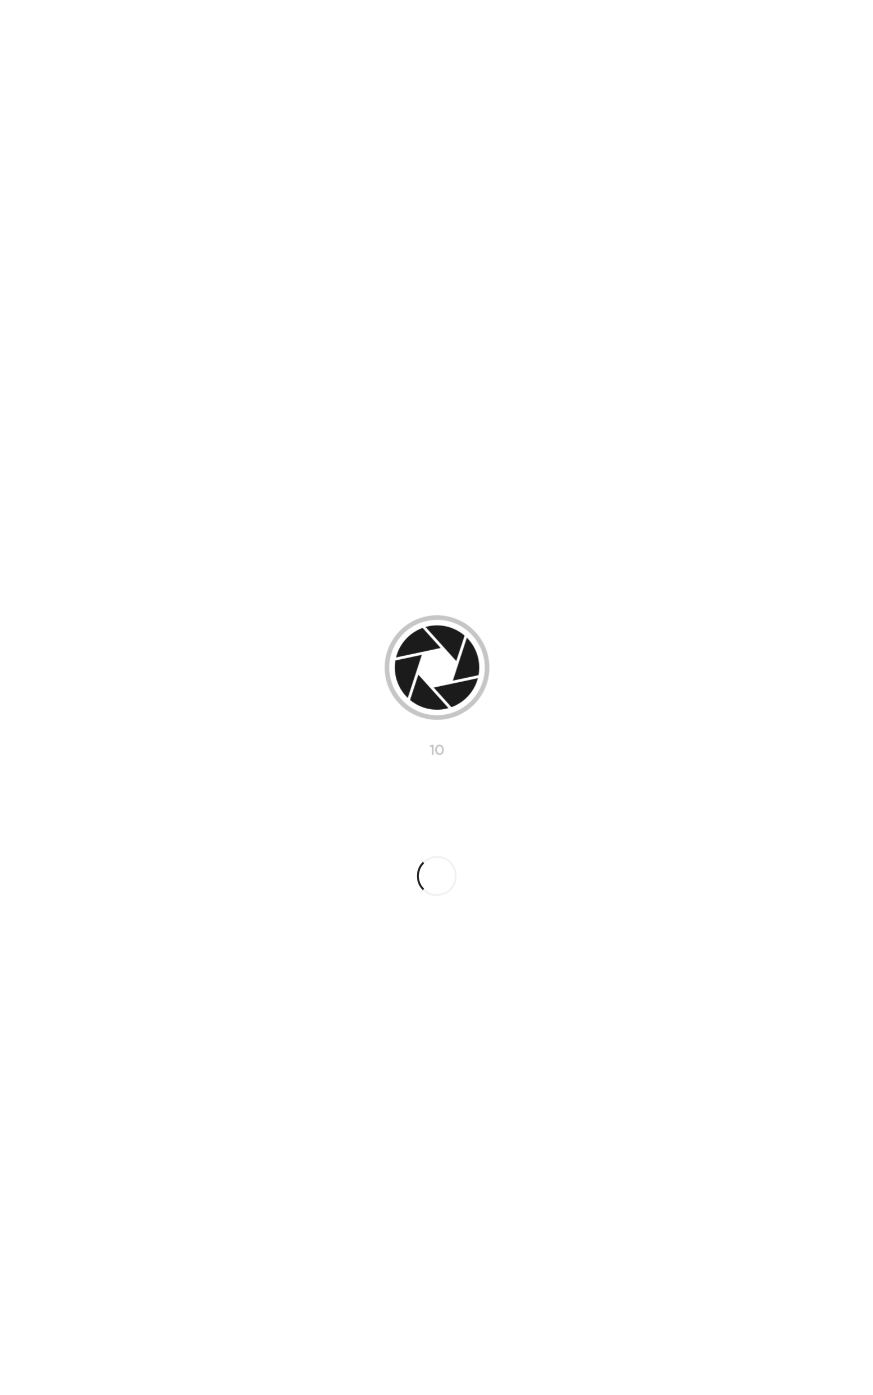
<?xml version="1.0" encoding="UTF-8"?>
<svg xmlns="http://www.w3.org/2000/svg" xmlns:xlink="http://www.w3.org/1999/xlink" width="873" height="1395">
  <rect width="100%" height="100%" fill="#ffffff" />
  <image x="384" y="615" width="106" height="140" xlink:href="image1.png" />
  <path d="M 423.5 862.5 c 3.5 -3.5 8.5 -5.5 13.5 -5.5 c 22.5 0 26 33 3.5 37.5 c -6 1.5 -12.5 -0.5 -17 -5" fill="none" stroke="#f2f2f2" stroke-width="2" />
  <path d="M 423.5 889.5 c -7.5 -7.5 -7.5 -19.5 0 -27" fill="none" stroke="#222222" stroke-width="2" />
</svg>
